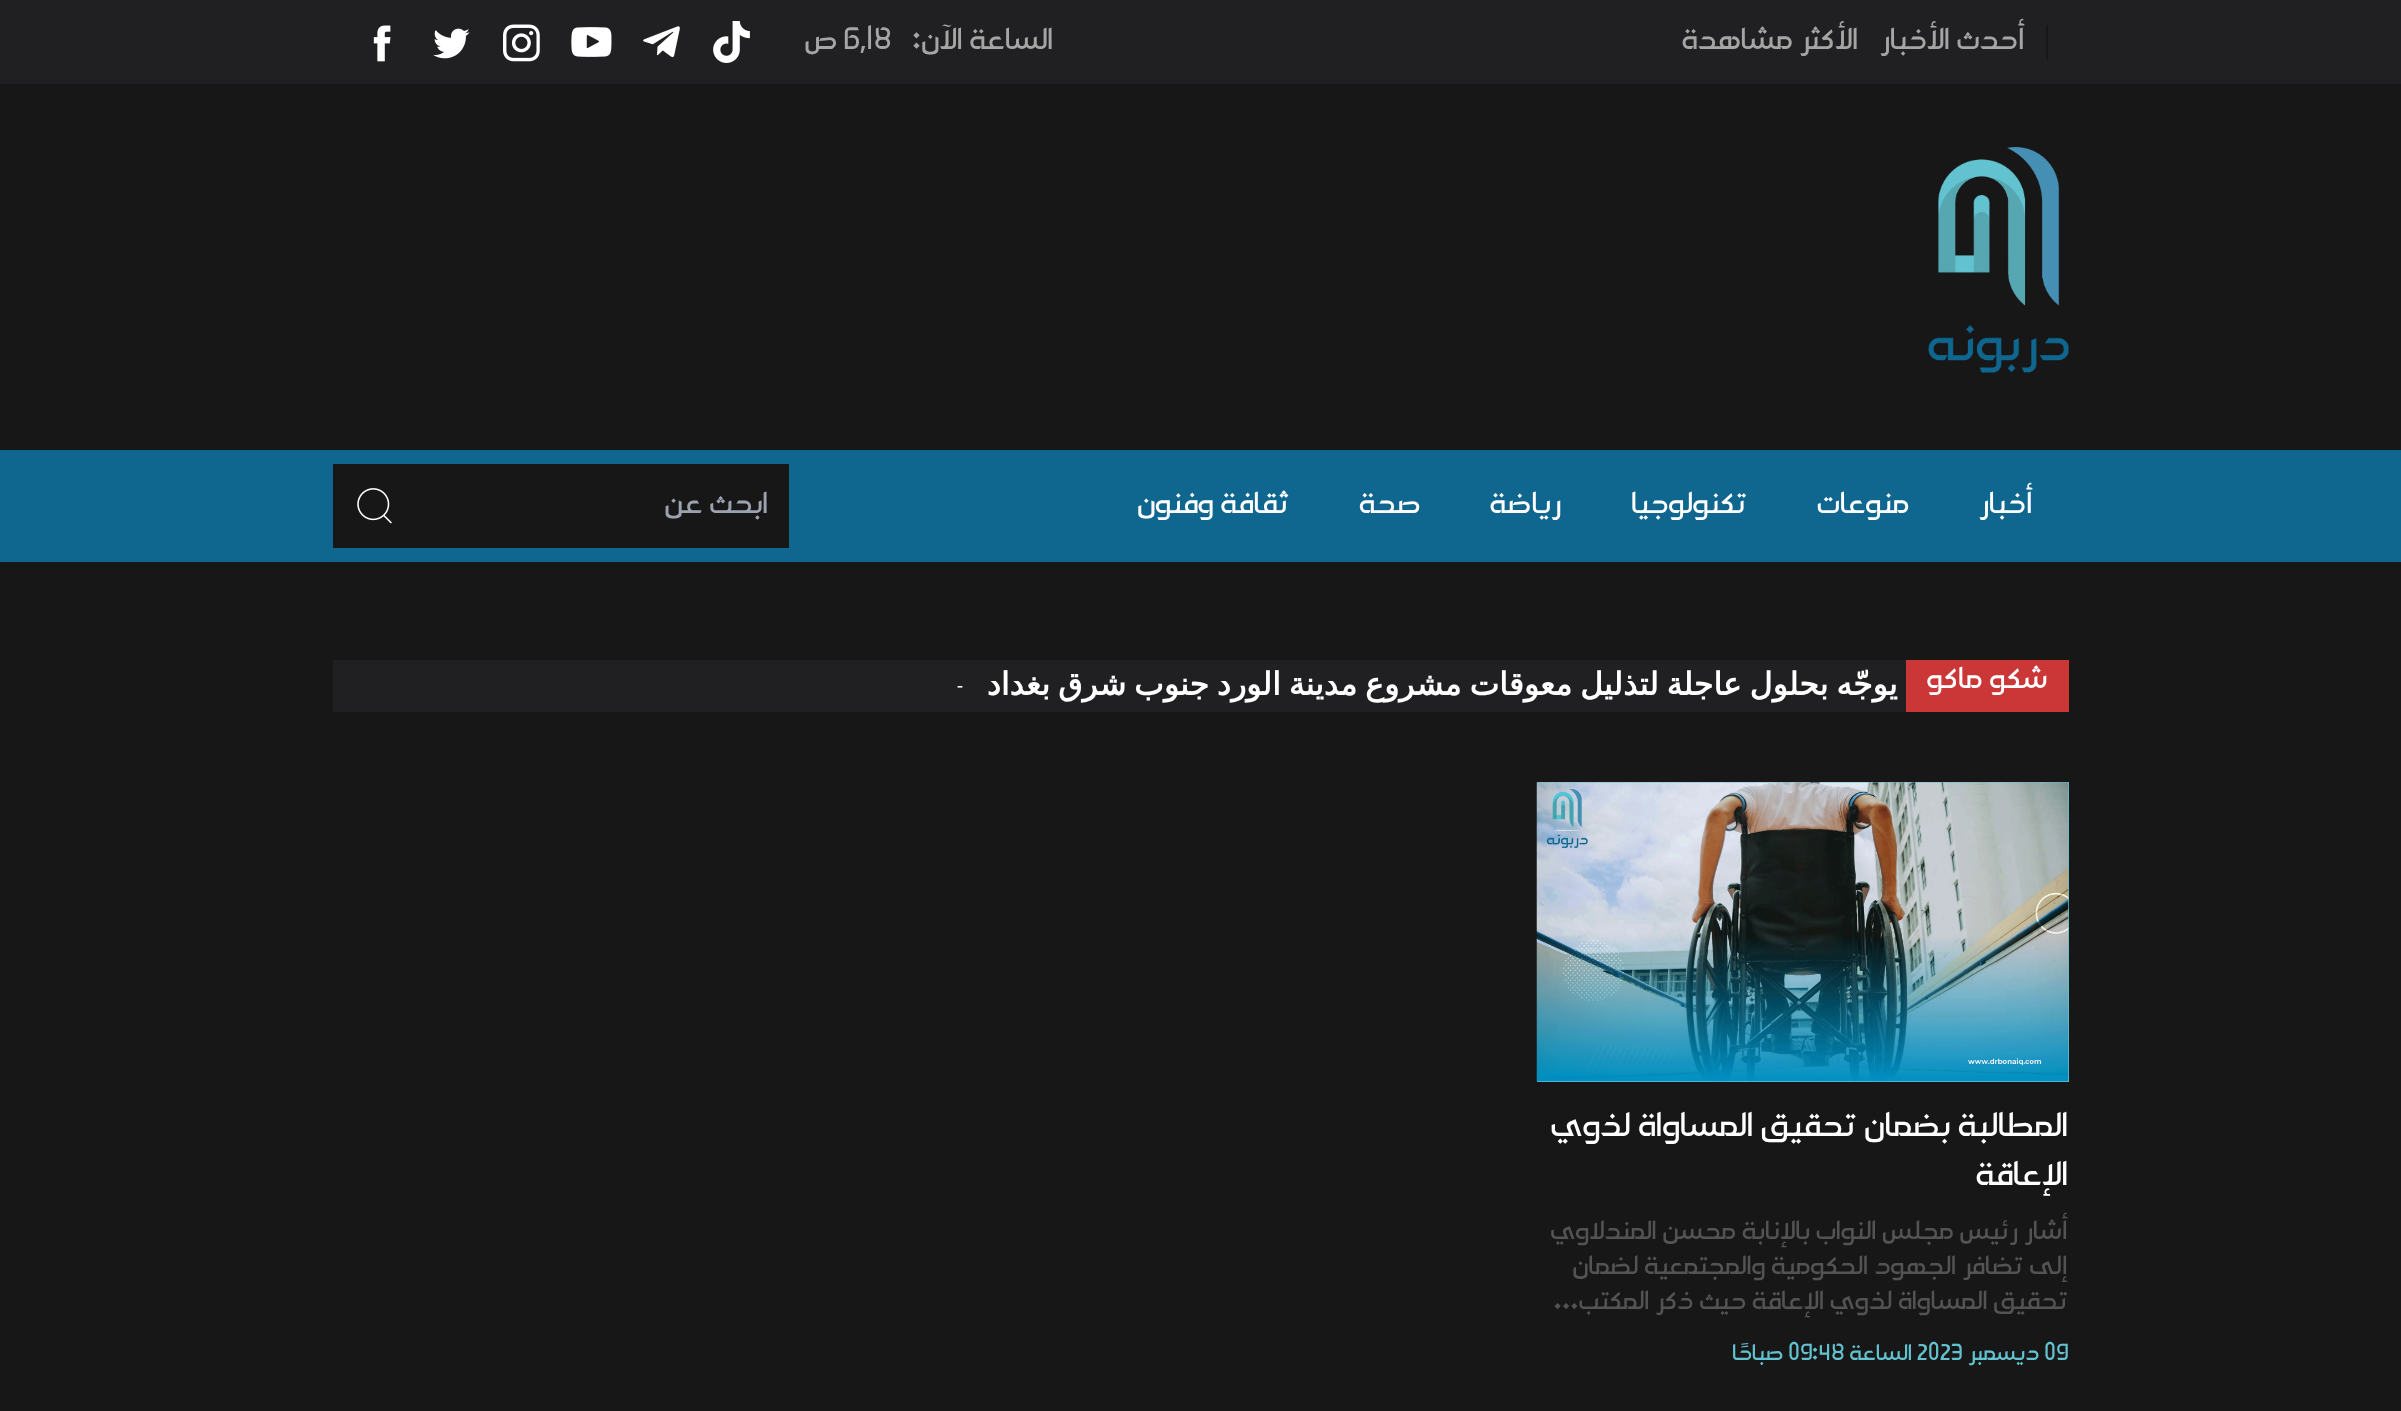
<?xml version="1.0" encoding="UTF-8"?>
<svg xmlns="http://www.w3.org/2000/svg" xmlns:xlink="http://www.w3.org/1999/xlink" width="2401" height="1411">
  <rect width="100%" height="100%" fill="#171717" />
  <rect width="2401" height="84" fill="#202022" />
  <rect x="2046" y="25" width="2" height="35" fill="#171717" />
  <image x="713" y="21" width="37" height="42" xlink:href="image1.png" />
  <image x="643" y="26" width="37" height="32" xlink:href="image2.png" />
  <image x="571" y="27" width="41" height="30" xlink:href="image3.png" />
  <image x="503" y="24" width="37" height="38" xlink:href="image4.png" />
  <image x="433" y="28" width="37" height="31" xlink:href="image5.png" />
  <image x="373" y="25" width="18" height="37" xlink:href="image6.png" />
  <image x="1928" y="147" width="141" height="226" xlink:href="image7.png" />
  <rect y="450" width="2401" height="112" fill="#0f668f" />
  <rect x="333" y="464" width="456" height="84" fill="#171717" />
  <image x="357" y="488" width="35" height="36" xlink:href="image8.png" />
  <rect x="333" y="660" width="1573" height="52" fill="#202022" />
  <rect x="1537" y="782" width="532" height="300" fill="#63c2d0" />
  <image x="1536" y="782" width="533" height="300" xlink:href="image9.png" />
  <text x="2025" y="49" style="font-family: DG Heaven; font-size: 28px; font-weight: 100; direction: rtl; fill: #a5a5a5">أحدث الأخبار</text>
  <text x="1858" y="49" style="font-family: DG Heaven; font-size: 28px; font-weight: 100; direction: rtl; fill: #a5a5a5">الأكثر مشاهدة</text>
  <text x="1053" y="49" style="font-family: DG Heaven; font-size: 28px; font-weight: 100; direction: rtl; fill: #a5a5a5">الساعة الآن:</text>
  <text x="844" y="49" style="font-family: DG Heaven; font-size: 28px; font-weight: 100; fill: #a5a5a5">6٫18</text>
  <text x="837" y="49" style="font-family: DG Heaven; font-size: 28px; font-weight: 100; direction: rtl; fill: #a5a5a5">ص</text>
  <text x="2033" y="513" style="font-family: DG Heaven; font-size: 28px; font-weight: 100; direction: rtl; fill: #ffffff">أخبار</text>
  <text x="1909" y="513" style="font-family: DG Heaven; font-size: 28px; font-weight: 100; direction: rtl; fill: #ffffff">منوعات</text>
  <text x="1747" y="513" style="font-family: DG Heaven; font-size: 28px; font-weight: 100; direction: rtl; fill: #ffffff">تكنولوجيا</text>
  <text x="1561" y="513" style="font-family: DG Heaven; font-size: 28px; font-weight: 100; direction: rtl; fill: #ffffff">رياضة</text>
  <text x="1420" y="513" style="font-family: DG Heaven; font-size: 28px; font-weight: 100; direction: rtl; fill: #ffffff">صحة</text>
  <text x="1289" y="513" style="font-family: DG Heaven; font-size: 28px; font-weight: 100; direction: rtl; fill: #ffffff">ثقافة وفنون</text>
  <text x="768" y="513" style="font-family: DG Heaven; font-size: 28px; font-weight: 100; direction: rtl; fill: #9ca3af">ابحث عن</text>
  <text x="2026" y="695" word-spacing="-2.1" style="font-family: DejaVu Sans; font-size: 31.5px; font-weight: bold; direction: rtl; fill: #ffffff">السوداني يوجّه بحلول عاجلة لتذليل معوقات مشروع مدينة الورد جنوب شرق بغداد</text>
  <rect x="1906" y="660" width="163" height="52" fill="#cb3636" />
  <text x="2047" y="688" style="font-family: DG Heaven; font-size: 28px; font-weight: 100; direction: rtl; fill: #ffffff">شكو ماكو</text>
  <text x="957" y="691" style="font-family: Liberation Serif; font-size: 18px; font-weight: bold; fill: #ffffff">-</text>
  <text x="2068" y="1136" style="font-family: DG Heaven; font-size: 31.5px; font-weight: 100; direction: rtl; fill: #ffffff">المطالبة بضمان تحقيق المساواة لذوي</text>
  <text x="2068" y="1185" style="font-family: DG Heaven; font-size: 31.5px; font-weight: 100; direction: rtl; fill: #ffffff">الإعاقة</text>
  <text x="2068" y="1239" style="font-family: DG Heaven; font-size: 24.5px; font-weight: 100; direction: rtl; fill: #535353">أشار رئيس مجلس النواب بالإنابة محسن المندلاوي</text>
  <text x="2068" y="1274" style="font-family: DG Heaven; font-size: 24.5px; font-weight: 100; direction: rtl; fill: #535353">إلى تضافر الجهود الحكومية والمجتمعية لضمان</text>
  <text x="2068" y="1309" style="font-family: DG Heaven; font-size: 24.5px; font-weight: 100; direction: rtl; fill: #535353">تحقيق المساواة لذوي الإعاقة حيث ذكر المكتب...</text>
  <text x="2044" y="1360" style="font-family: DG Heaven; font-size: 21px; font-weight: 100; fill: #63c2d0">09</text>
  <text x="2039" y="1360" style="font-family: DG Heaven; font-size: 21px; font-weight: 100; direction: rtl; fill: #63c2d0">ديسمبر</text>
  <text x="1917" y="1360" style="font-family: DG Heaven; font-size: 21px; font-weight: 100; fill: #63c2d0">2023</text>
  <text x="1912" y="1360" style="font-family: DG Heaven; font-size: 21px; font-weight: 100; direction: rtl; fill: #63c2d0">الساعة</text>
  <text x="1788" y="1360" style="font-family: DG Heaven; font-size: 21px; font-weight: 100; fill: #63c2d0">09:48</text>
  <text x="1783" y="1360" style="font-family: DG Heaven; font-size: 21px; font-weight: 100; direction: rtl; fill: #63c2d0">صباحًا</text>
</svg>
